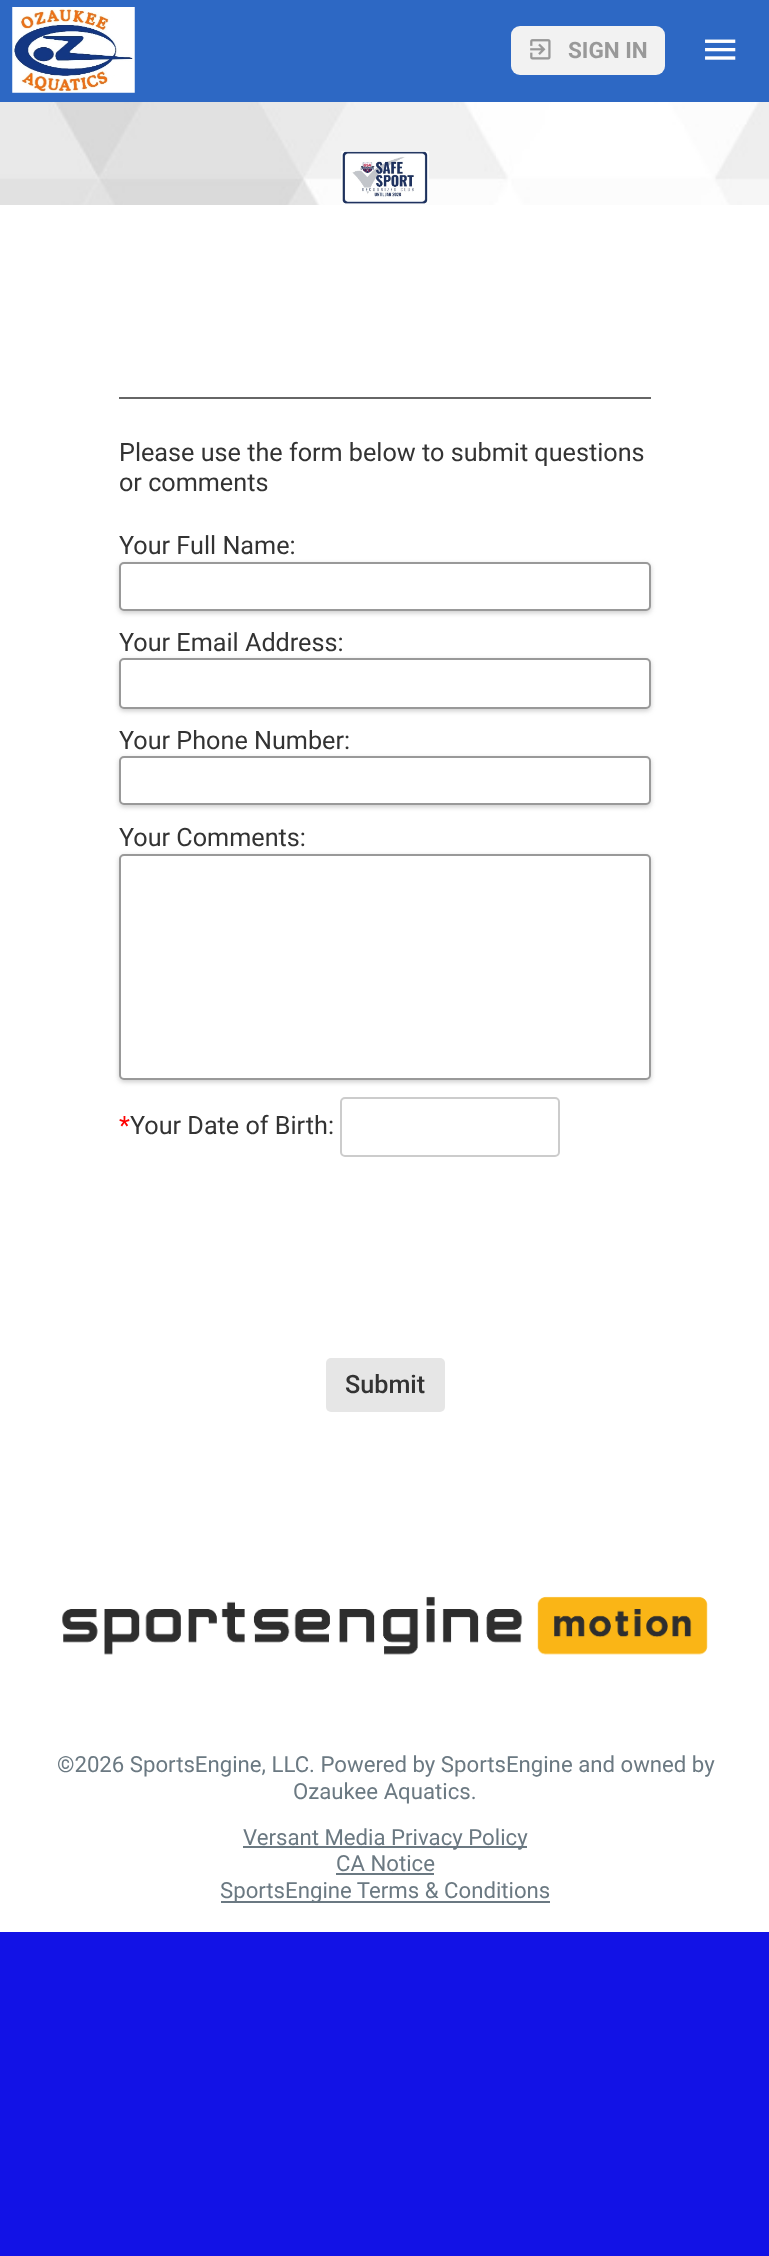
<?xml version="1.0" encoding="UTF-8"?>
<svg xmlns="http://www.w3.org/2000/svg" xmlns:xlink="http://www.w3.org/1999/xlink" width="769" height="2256">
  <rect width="100%" height="100%" fill="#1212e6" />
  <rect width="769" height="102" fill="#2d68c4" />
  <image x="12" y="7" width="123" height="86" xlink:href="image1.png" />
  <rect x="511" y="26" width="154" height="49" rx="9" fill="#f2f2f2" />
  <image x="530" y="39" width="21" height="21" xlink:href="image2.png" />
  <image x="705" y="39" width="31" height="21" xlink:href="image3.png" />
  <rect y="205" width="769" height="1727" fill="#ffffff" />
  <image x="0" y="102" width="769" height="49" xlink:href="image4.png" />
  <image x="0" y="151" width="769" height="54" xlink:href="image5.png" />
  <image x="341" y="151" width="88" height="53" xlink:href="image6.png" />
  <rect x="119" y="397" width="532" height="2" fill="#666666" />
  <rect x="119" y="564" width="532" height="49" rx="5" fill="#cccccc" filter="blur(2.5px)" />
  <rect x="120" y="563" width="530" height="47" rx="4" fill="#ffffff" stroke="#999999" stroke-width="2" />
  <rect x="119" y="660" width="532" height="51" rx="5" fill="#cccccc" filter="blur(2.5px)" />
  <rect x="120" y="659" width="530" height="49" rx="4" fill="#ffffff" stroke="#999999" stroke-width="2" />
  <rect x="119" y="758" width="532" height="49" rx="5" fill="#cccccc" filter="blur(2.5px)" />
  <rect x="120" y="757" width="530" height="47" rx="4" fill="#ffffff" stroke="#999999" stroke-width="2" />
  <rect x="119" y="856" width="532" height="226" rx="5" fill="#cccccc" filter="blur(2.5px)" />
  <rect x="120" y="855" width="530" height="224" rx="4" fill="#ffffff" stroke="#999999" stroke-width="2" />
  <rect x="341" y="1098" width="218" height="58" rx="4" fill="none" stroke="#cccccc" stroke-width="2" />
  <rect x="326" y="1358" width="119" height="54" rx="5" fill="#e6e6e6" />
  <image x="62" y="1596" width="646" height="59" xlink:href="image7.png" />
  <rect x="243" y="1846" width="284" height="2" fill="#6b7982" />
  <rect x="336" y="1873" width="98" height="2" fill="#6b7982" />
  <rect x="221" y="1901" width="329" height="2" fill="#6b7982" />
  <text x="568" y="58" style="font-family: Roboto; font-size: 22.5px; font-weight: bold; fill: #999999">SIGN IN</text>
  <text x="119" y="461" style="font-family: Roboto; font-size: 25.2px; fill: #333333">Please use the form below to submit questions</text>
  <text x="119" y="491" style="font-family: Roboto; font-size: 25.2px; fill: #333333">or comments</text>
  <text x="119" y="554" style="font-family: Roboto; font-size: 25.2px; fill: #333333">Your Full Name:</text>
  <text x="119" y="651" style="font-family: Roboto; font-size: 25.2px; fill: #333333">Your Email Address:</text>
  <text x="119" y="749" style="font-family: Roboto; font-size: 25.2px; fill: #333333">Your Phone Number:</text>
  <text x="119" y="846" style="font-family: Roboto; font-size: 25.2px; fill: #333333">Your Comments:</text>
  <text x="119" y="1134" style="font-family: Roboto; font-size: 25.2px; fill: #ff0000">*</text>
  <text x="130" y="1134" style="font-family: Roboto; font-size: 25.2px; fill: #333333">Your Date of Birth:</text>
  <text x="345" y="1393" style="font-family: Roboto; font-size: 25.2px; font-weight: 500; fill: #333333">Submit</text>
  <text x="57" y="1772" style="font-family: Roboto; font-size: 22.2px; fill: #6b7982">©2026 SportsEngine, LLC. Powered by SportsEngine and owned by</text>
  <text x="293" y="1799" style="font-family: Roboto; font-size: 22.2px; fill: #6b7982">Ozaukee Aquatics.</text>
  <text x="243" y="1845" style="font-family: Roboto; font-size: 22.2px; fill: #6b7982">Versant Media Privacy Policy</text>
  <text x="336" y="1871" style="font-family: Roboto; font-size: 22.2px; fill: #6b7982">CA Notice</text>
  <text x="220" y="1898" style="font-family: Roboto; font-size: 22.2px; fill: #6b7982">SportsEngine Terms &amp; Conditions</text>
</svg>
